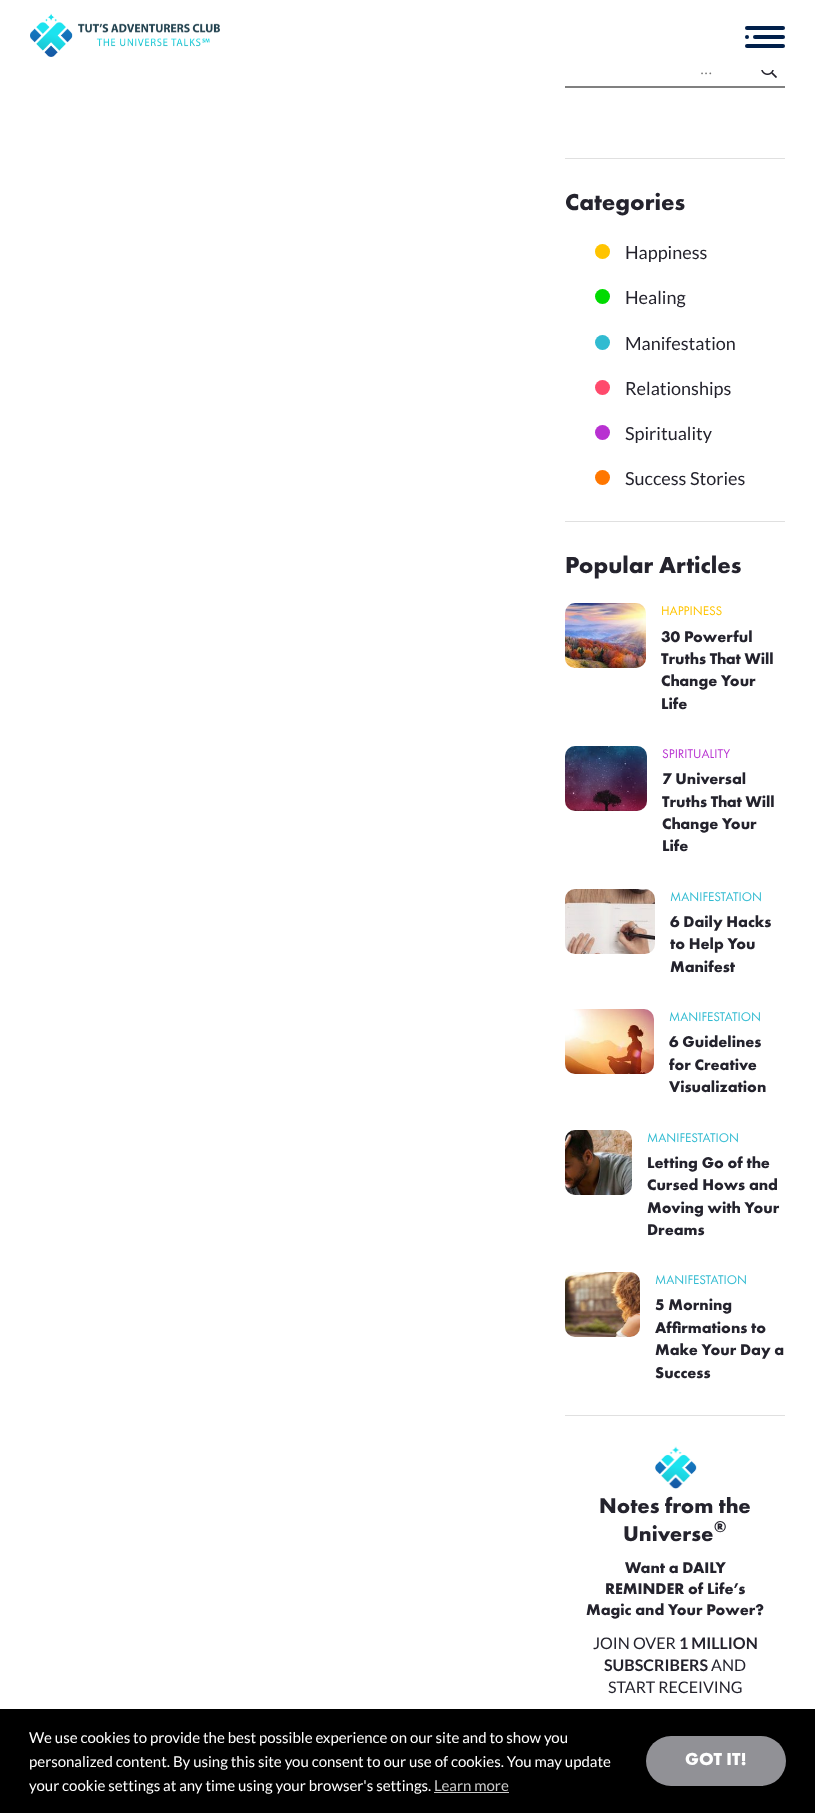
<?xml version="1.0" encoding="UTF-8"?>
<svg xmlns="http://www.w3.org/2000/svg" xmlns:xlink="http://www.w3.org/1999/xlink" width="815" height="1813">
  <rect width="100%" height="100%" fill="#ffffff" />
  <image x="30" y="13" width="190" height="44" xlink:href="image1.png" />
  <rect x="745" y="26" width="40" height="4" rx="2" fill="#001f4a" />
  <rect x="753" y="35" width="32" height="4" rx="2" fill="#001f4a" />
  <circle cx="747" cy="37" r="2" fill="#001f4a" />
  <rect x="745" y="44" width="40" height="4" rx="2" fill="#001f4a" />
  <rect x="565" y="158" width="220" height="1" fill="#e0e0e0" />
  <rect x="565" y="86" width="220" height="2" fill="#808080" />
  <image x="761" y="70" width="16" height="8" xlink:href="image2.png" />
  <rect x="565" y="521" width="220" height="1" fill="#e0e0e0" />
  <circle cx="602.5" cy="251.5" r="7.5" fill="#ffc400" />
  <circle cx="602.5" cy="296.5" r="7.5" fill="#00db00" />
  <circle cx="602.5" cy="342.5" r="7.5" fill="#31bbd1" />
  <circle cx="602.5" cy="387.5" r="7.5" fill="#ff4a6c" />
  <circle cx="602.5" cy="432.5" r="7.5" fill="#b831d1" />
  <circle cx="602.5" cy="477.5" r="7.5" fill="#ff7700" />
  <rect x="565" y="1415" width="220" height="1" fill="#e0e0e0" />
  <image x="565" y="603" width="81" height="65" xlink:href="image3.png" />
  <image x="565" y="746" width="82" height="65" xlink:href="image4.png" />
  <image x="565" y="889" width="90" height="65" xlink:href="image5.png" />
  <image x="565" y="1009" width="89" height="65" xlink:href="image6.png" />
  <image x="565" y="1130" width="67" height="65" xlink:href="image7.png" />
  <image x="565" y="1272" width="75" height="65" xlink:href="image8.png" />
  <image x="655" y="1446" width="42" height="43" xlink:href="image9.png" />
  <rect y="1709" width="815" height="104" fill="#000000" />
  <rect x="434" y="1792" width="75" height="1" fill="#cccccc" />
  <rect x="646" y="1736" width="140" height="50" rx="25" fill="#919196" />
  <text x="700" y="74" style="font-family: Futura PT; font-size: 18px; fill: #757575">...</text>
  <text x="565" y="210" style="font-family: Futura PT; font-size: 24px; font-weight: bold; fill: #24232d">Categories</text>
  <text x="625" y="259" style="font-family: Lato; font-size: 18px; fill: #24232d">Happiness</text>
  <text x="625" y="304" style="font-family: Lato; font-size: 18px; fill: #24232d">Healing</text>
  <text x="625" y="350" style="font-family: Lato; font-size: 18px; fill: #24232d">Manifestation</text>
  <text x="625" y="395" style="font-family: Lato; font-size: 18px; fill: #24232d">Relationships</text>
  <text x="625" y="440" style="font-family: Lato; font-size: 18px; fill: #24232d">Spirituality</text>
  <text x="625" y="485" style="font-family: Lato; font-size: 18px; fill: #24232d">Success Stories</text>
  <text x="565" y="573" style="font-family: Futura PT; font-size: 24px; font-weight: bold; fill: #24232d">Popular Articles</text>
  <text x="661" y="615" style="font-family: Futura PT; font-size: 13px; fill: #ffc400">HAPPINESS</text>
  <text x="661" y="642" style="font-family: Futura PT; font-size: 16px; font-weight: bold; fill: #24232d">30 Powerful</text>
  <text x="661" y="664" style="font-family: Futura PT; font-size: 16px; font-weight: bold; fill: #24232d">Truths That Will</text>
  <text x="661" y="686" style="font-family: Futura PT; font-size: 16px; font-weight: bold; fill: #24232d">Change Your</text>
  <text x="661" y="709" style="font-family: Futura PT; font-size: 16px; font-weight: bold; fill: #24232d">Life</text>
  <text x="662" y="758" style="font-family: Futura PT; font-size: 13px; fill: #b831d1">SPIRITUALITY</text>
  <text x="662" y="784" style="font-family: Futura PT; font-size: 16px; font-weight: bold; fill: #24232d">7 Universal</text>
  <text x="662" y="807" style="font-family: Futura PT; font-size: 16px; font-weight: bold; fill: #24232d">Truths That Will</text>
  <text x="662" y="829" style="font-family: Futura PT; font-size: 16px; font-weight: bold; fill: #24232d">Change Your</text>
  <text x="662" y="851" style="font-family: Futura PT; font-size: 16px; font-weight: bold; fill: #24232d">Life</text>
  <text x="670" y="901" style="font-family: Futura PT; font-size: 13px; fill: #31bbd1">MANIFESTATION</text>
  <text x="670" y="927" style="font-family: Futura PT; font-size: 16px; font-weight: bold; fill: #24232d">6 Daily Hacks</text>
  <text x="670" y="949" style="font-family: Futura PT; font-size: 16px; font-weight: bold; fill: #24232d">to Help You</text>
  <text x="670" y="972" style="font-family: Futura PT; font-size: 16px; font-weight: bold; fill: #24232d">Manifest</text>
  <text x="669" y="1021" style="font-family: Futura PT; font-size: 13px; fill: #31bbd1">MANIFESTATION</text>
  <text x="669" y="1047" style="font-family: Futura PT; font-size: 16px; font-weight: bold; fill: #24232d">6 Guidelines</text>
  <text x="669" y="1070" style="font-family: Futura PT; font-size: 16px; font-weight: bold; fill: #24232d">for Creative</text>
  <text x="669" y="1092" style="font-family: Futura PT; font-size: 16px; font-weight: bold; fill: #24232d">Visualization</text>
  <text x="647" y="1142" style="font-family: Futura PT; font-size: 13px; fill: #31bbd1">MANIFESTATION</text>
  <text x="647" y="1168" style="font-family: Futura PT; font-size: 16px; font-weight: bold; fill: #24232d">Letting Go of the</text>
  <text x="647" y="1190" style="font-family: Futura PT; font-size: 16px; font-weight: bold; fill: #24232d">Cursed Hows and</text>
  <text x="647" y="1213" style="font-family: Futura PT; font-size: 16px; font-weight: bold; fill: #24232d">Moving with Your</text>
  <text x="647" y="1235" style="font-family: Futura PT; font-size: 16px; font-weight: bold; fill: #24232d">Dreams</text>
  <text x="655" y="1284" style="font-family: Futura PT; font-size: 13px; fill: #31bbd1">MANIFESTATION</text>
  <text x="655" y="1310" style="font-family: Futura PT; font-size: 16px; font-weight: bold; fill: #24232d">5 Morning</text>
  <text x="655" y="1333" style="font-family: Futura PT; font-size: 16px; font-weight: bold; fill: #24232d">Affirmations to</text>
  <text x="655" y="1355" style="font-family: Futura PT; font-size: 16px; font-weight: bold; fill: #24232d">Make Your Day a</text>
  <text x="655" y="1378" style="font-family: Futura PT; font-size: 16px; font-weight: bold; fill: #24232d">Success</text>
  <text x="599" y="1513" style="font-family: Futura PT; font-size: 22px; font-weight: bold; fill: #24232d">Notes from the</text>
  <text x="623" y="1541" style="font-family: Futura PT; font-size: 22px; font-weight: bold; fill: #24232d">Universe</text>
  <text x="714" y="1532" style="font-family: Futura PT; font-size: 16px; font-weight: bold; fill: #24232d">®</text>
  <text x="625" y="1573" style="font-family: Futura PT; font-size: 16px; font-weight: bold; fill: #24232d">Want a DAILY</text>
  <text x="605" y="1594" style="font-family: Futura PT; font-size: 16px; font-weight: bold; fill: #24232d">REMINDER of Life’s</text>
  <text x="586" y="1615" style="font-family: Futura PT; font-size: 16px; font-weight: bold; fill: #24232d">Magic and Your Power?</text>
  <text x="593" y="1649" style="font-family: Lato; font-size: 16px; fill: #24232d">JOIN OVER</text>
  <text x="679" y="1649" style="font-family: Lato; font-size: 16px; font-weight: bold; fill: #24232d">1 MILLION</text>
  <text x="604" y="1671" style="font-family: Lato; font-size: 16px; font-weight: bold; fill: #24232d">SUBSCRIBERS</text>
  <text x="711" y="1671" style="font-family: Lato; font-size: 16px; fill: #24232d">AND</text>
  <text x="608" y="1693" style="font-family: Lato; font-size: 16px; fill: #24232d">START RECEIVING</text>
  <text x="29" y="1743" style="font-family: Lato; font-size: 15px; fill: #ffffff">We use cookies to provide the best possible experience on our site and to show you</text>
  <text x="29" y="1767" style="font-family: Lato; font-size: 15px; fill: #ffffff">personalized content. By using this site you consent to our use of cookies. You may update</text>
  <text x="29" y="1791" style="font-family: Lato; font-size: 15px; fill: #ffffff">your cookie settings at any time using your browser's settings.</text>
  <text x="434" y="1791" style="font-family: Lato; font-size: 15px; fill: #cccccc">Learn more</text>
  <text x="685" y="1765" style="font-family: Futura PT; font-size: 18px; font-weight: bold; fill: #ffffff">GOT IT!</text>
</svg>
